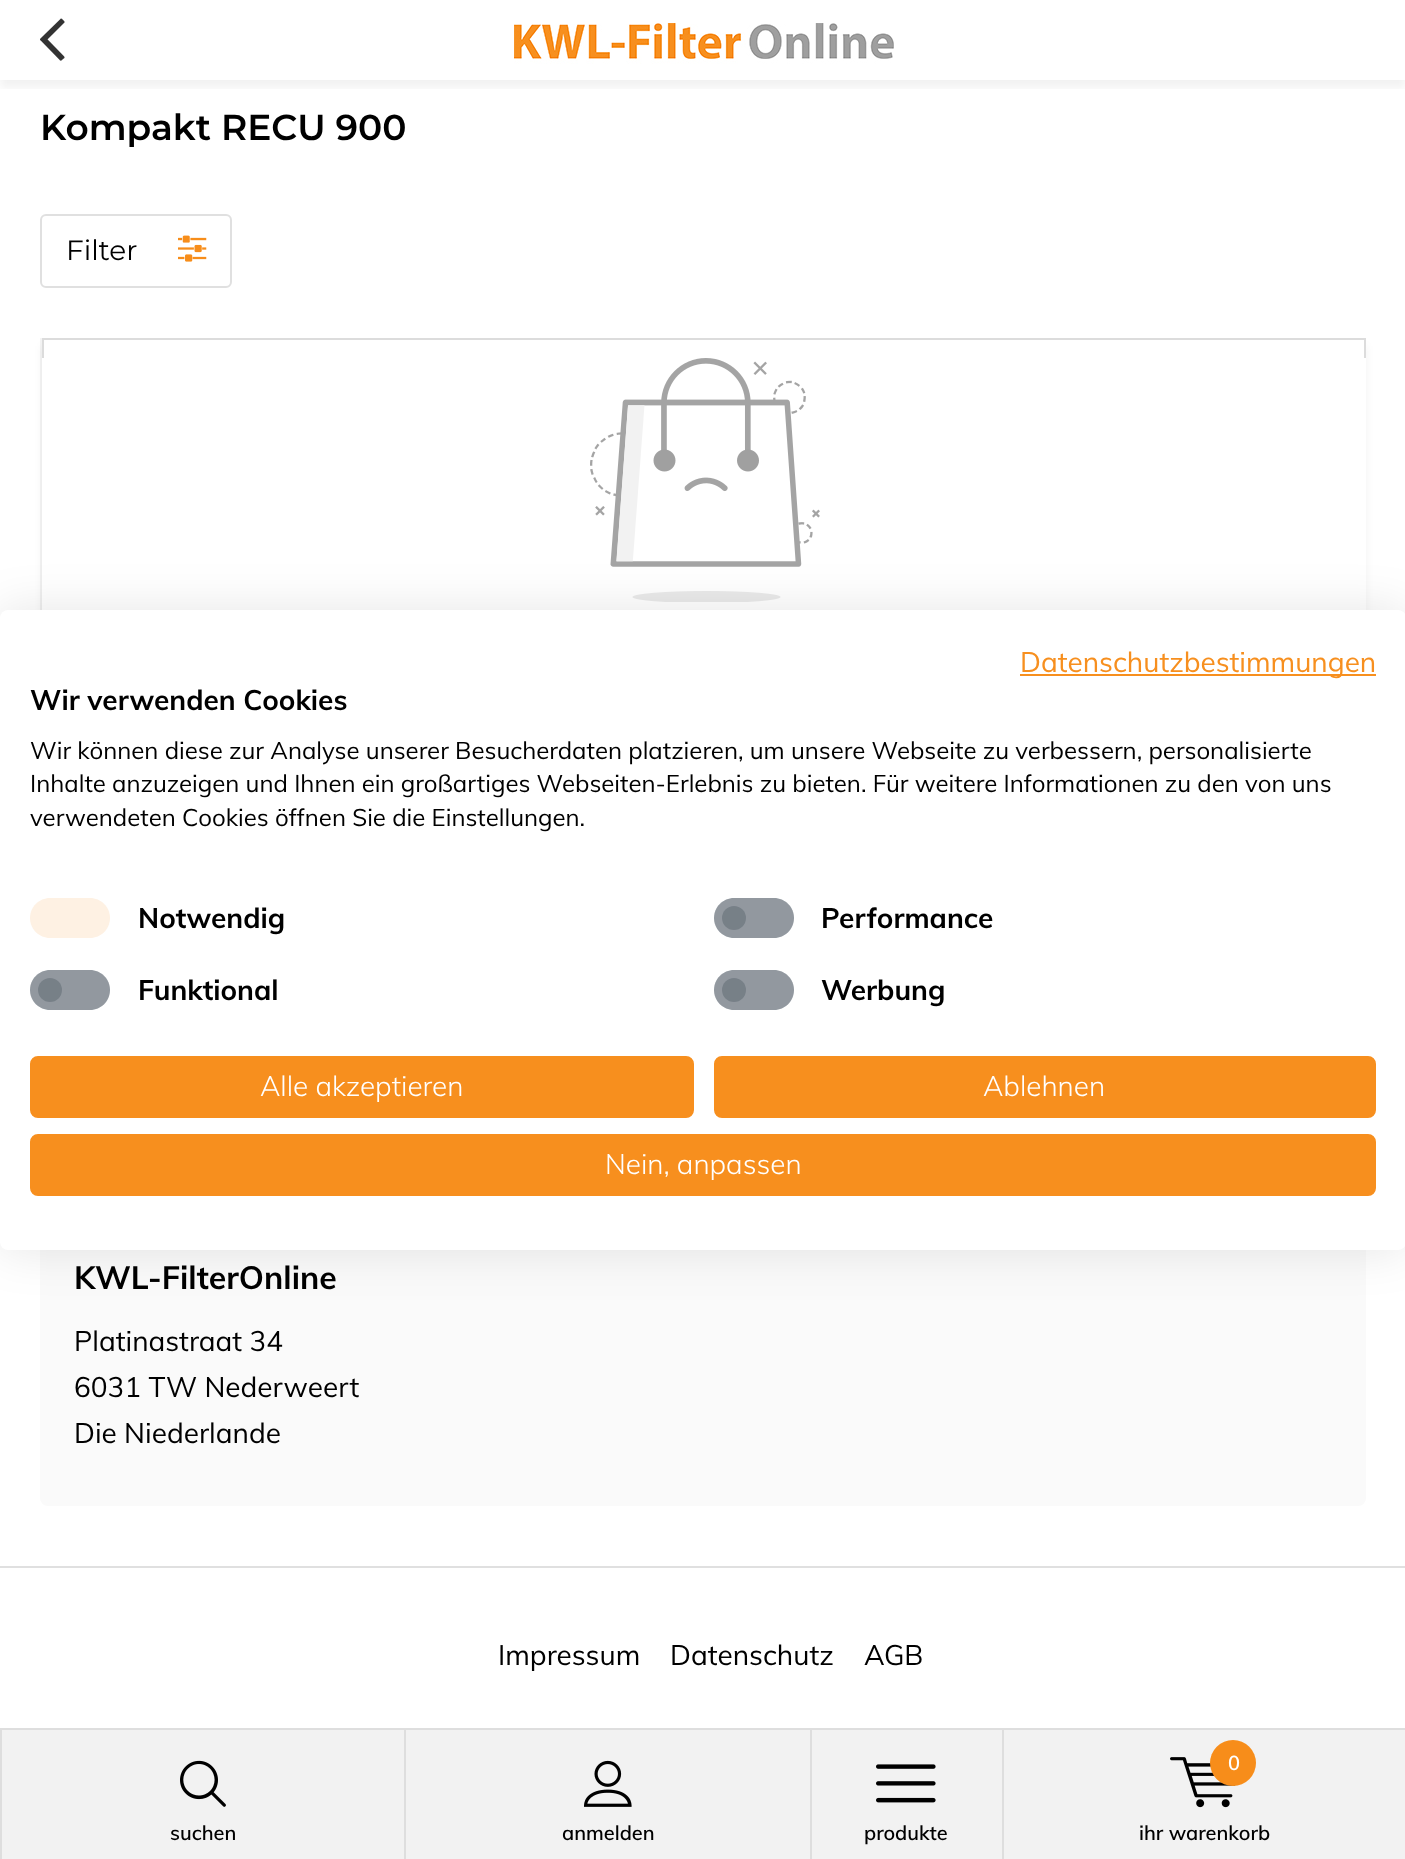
<?xml version="1.0" encoding="UTF-8"?>
<svg xmlns="http://www.w3.org/2000/svg" xmlns:xlink="http://www.w3.org/1999/xlink" width="1405" height="1859">
  <defs>
    <clipPath id="clip1"><path d="M 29 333 h 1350 v 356 h -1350 z m 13 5 h 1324 v 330 h -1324 z" clip-rule="evenodd" /></clipPath>
    <clipPath id="clip2"><rect x="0" y="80" width="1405" height="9" /></clipPath>
  </defs>
  <rect width="100%" height="100%" fill="#ffffff" />
  <rect x="41" y="215" width="190" height="72" rx="5" fill="none" stroke="#e0e0e0" stroke-width="2" />
  <image x="178" y="235" width="29" height="27" xlink:href="image1.png" />
  <rect x="40" y="338" width="2" height="272" fill="#f4f4f4" />
  <g clip-path="url(#clip1)">
    <rect x="42" y="346" width="1324" height="330" fill="#000000" fill-opacity="0.05" filter="blur(4px)" />
  </g>
  <rect x="43" y="339" width="1322" height="328" fill="none" stroke="#dcdcdc" stroke-width="2" />
  <rect x="42" y="358" width="1324" height="252" fill="#ffffff" />
  <image x="590" y="358" width="230" height="244" xlink:href="image2.png" />
  <rect y="1566" width="1405" height="2" fill="#e0e0e0" />
  <rect x="40" y="1222" width="1326" height="284" rx="8" fill="#fafafa" />
  <g clip-path="url(#clip2)">
    <rect y="8" width="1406" height="80" fill="#000000" fill-opacity="0.05" filter="blur(4px)" />
  </g>
  <image x="40" y="18" width="25" height="43" xlink:href="image3.png" />
  <image x="514" y="23" width="380" height="41" xlink:href="image4.png" />
  <rect x="406" y="1730" width="999" height="129" fill="#f2f2f2" />
  <rect x="2" y="1730" width="402" height="129" fill="#f2f2f2" />
  <rect y="1728" width="810" height="2" fill="#dedede" />
  <rect y="1728" width="2" height="131" fill="#dedede" />
  <image x="180" y="1760" width="46" height="47" xlink:href="image5.png" />
  <rect x="404" y="1728" width="2" height="131" fill="#dedede" />
  <image x="584" y="1760" width="48" height="47" xlink:href="image6.png" />
  <rect x="810" y="1728" width="595" height="2" fill="#dedede" />
  <rect x="810" y="1728" width="2" height="131" fill="#dedede" />
  <image x="876" y="1764" width="60" height="39" xlink:href="image7.png" />
  <rect x="1002" y="1728" width="2" height="131" fill="#dedede" />
  <image x="1170" y="1757" width="66" height="51" xlink:href="image8.png" />
  <circle cx="1233" cy="1763" r="23" fill="#f78d1a" />
  <rect y="610" width="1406" height="640" rx="8" fill="#000000" fill-opacity="0.1" filter="blur(24px)" />
  <rect y="610" width="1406" height="640" rx="8" fill="#ffffff" />
  <rect x="1020" y="674" width="356" height="2" fill="#f78f1e" />
  <path d="M 50 898 h 40 c 11 0 20 9 20 20 c 0 11 -9 20 -20 20 h -40 c -11 0 -20 -9 -20 -20 c 0 -11 9 -20 20 -20 z" fill="#fef1e3" />
  <rect x="714" y="898" width="80" height="40" rx="20" fill="#e9ecef" />
  <circle cx="734" cy="918" r="12" fill="#92999f" />
  <path d="M 734 898 h 40 c 11 0 20 9 20 20 c 0 11 -9 20 -20 20 h -40 c -11 0 -20 -9 -20 -20 c 0 -11 9 -20 20 -20 z" fill="#6c757d" fill-opacity="0.7" />
  <rect x="30" y="970" width="80" height="40" rx="20" fill="#e9ecef" />
  <circle cx="50" cy="990" r="12" fill="#92999f" />
  <path d="M 50 970 h 40 c 11 0 20 9 20 20 c 0 11 -9 20 -20 20 h -40 c -11 0 -20 -9 -20 -20 c 0 -11 9 -20 20 -20 z" fill="#6c757d" fill-opacity="0.7" />
  <rect x="714" y="970" width="80" height="40" rx="20" fill="#e9ecef" />
  <circle cx="734" cy="990" r="12" fill="#92999f" />
  <path d="M 734 970 h 40 c 11 0 20 9 20 20 c 0 11 -9 20 -20 20 h -40 c -11 0 -20 -9 -20 -20 c 0 -11 9 -20 20 -20 z" fill="#6c757d" fill-opacity="0.7" />
  <rect x="31" y="1057" width="662" height="60" rx="7" fill="#f78f1e" stroke="#f78f1e" stroke-width="2" />
  <rect x="715" y="1057" width="660" height="60" rx="7" fill="#f78f1e" stroke="#f78f1e" stroke-width="2" />
  <rect x="31" y="1135" width="1344" height="60" rx="7" fill="#f78f1e" stroke="#f78f1e" stroke-width="2" />
  <text x="40" y="140" style="font-family: Montserrat; font-size: 36px; font-weight: 600; fill: #000000">Kompakt RECU 900</text>
  <text x="66" y="260" style="font-family: Montserrat; font-size: 28px; fill: #000000">Filter</text>
  <text x="74" y="1289" style="font-family: Muli; font-size: 32px; font-weight: bold; fill: #000000">KWL-FilterOnline</text>
  <text x="74" y="1351" style="font-family: Muli; font-size: 28px; fill: #000000">Platinastraat 34</text>
  <text x="74" y="1397" style="font-family: Muli; font-size: 28px; fill: #000000">6031 TW Nederweert</text>
  <text x="74" y="1443" style="font-family: Muli; font-size: 28px; fill: #000000">Die Niederlande</text>
  <text x="498" y="1665" style="font-family: Muli; font-size: 28px; fill: #000000">Impressum</text>
  <text x="670" y="1665" style="font-family: Muli; font-size: 28px; fill: #000000">Datenschutz</text>
  <text x="864" y="1665" style="font-family: Muli; font-size: 28px; fill: #000000">AGB</text>
  <text x="170" y="1840" style="font-family: Muli; font-size: 20px; font-weight: 600; fill: #000000">suchen</text>
  <text x="562" y="1840" style="font-family: Muli; font-size: 20px; font-weight: 600; fill: #000000">anmelden</text>
  <text x="864" y="1840" style="font-family: Muli; font-size: 20px; font-weight: 600; fill: #000000">produkte</text>
  <text x="1228" y="1770" style="font-family: Muli; font-size: 20px; font-weight: 600; fill: #ffffff">0</text>
  <text x="1139" y="1840" style="font-family: Muli; font-size: 20px; font-weight: 600; fill: #000000">ihr warenkorb</text>
  <text x="1020" y="672" style="font-family: Muli; font-size: 28px; fill: #f78f1e">Datenschutzbestimmungen</text>
  <text x="30" y="710" style="font-family: Muli; font-size: 28px; font-weight: bold; fill: #000000">Wir verwenden Cookies</text>
  <text x="30" y="759" style="font-family: Muli; font-size: 24px; fill: #000000">Wir können diese zur Analyse unserer Besucherdaten platzieren, um unsere Webseite zu verbessern, personalisierte</text>
  <text x="30" y="792" style="font-family: Muli; font-size: 24px; fill: #000000">Inhalte anzuzeigen und Ihnen ein großartiges Webseiten-Erlebnis zu bieten. Für weitere Informationen zu den von uns</text>
  <text x="30" y="826" style="font-family: Muli; font-size: 24px; fill: #000000">verwendeten Cookies öffnen Sie die Einstellungen.</text>
  <text x="138" y="928" style="font-family: Muli; font-size: 28px; font-weight: bold; fill: #000000">Notwendig</text>
  <text x="821" y="928" style="font-family: Muli; font-size: 28px; font-weight: bold; fill: #000000">Performance</text>
  <text x="138" y="1000" style="font-family: Muli; font-size: 28px; font-weight: bold; fill: #000000">Funktional</text>
  <text x="821" y="1000" style="font-family: Muli; font-size: 28px; font-weight: bold; fill: #000000">Werbung</text>
  <text x="260" y="1096" style="font-family: Muli; font-size: 28px; font-weight: 300; fill: #ffffff">Alle akzeptieren</text>
  <text x="983" y="1096" style="font-family: Muli; font-size: 28px; font-weight: 300; fill: #ffffff">Ablehnen</text>
  <text x="605" y="1174" style="font-family: Muli; font-size: 28px; font-weight: 300; fill: #ffffff">Nein, anpassen</text>
</svg>
